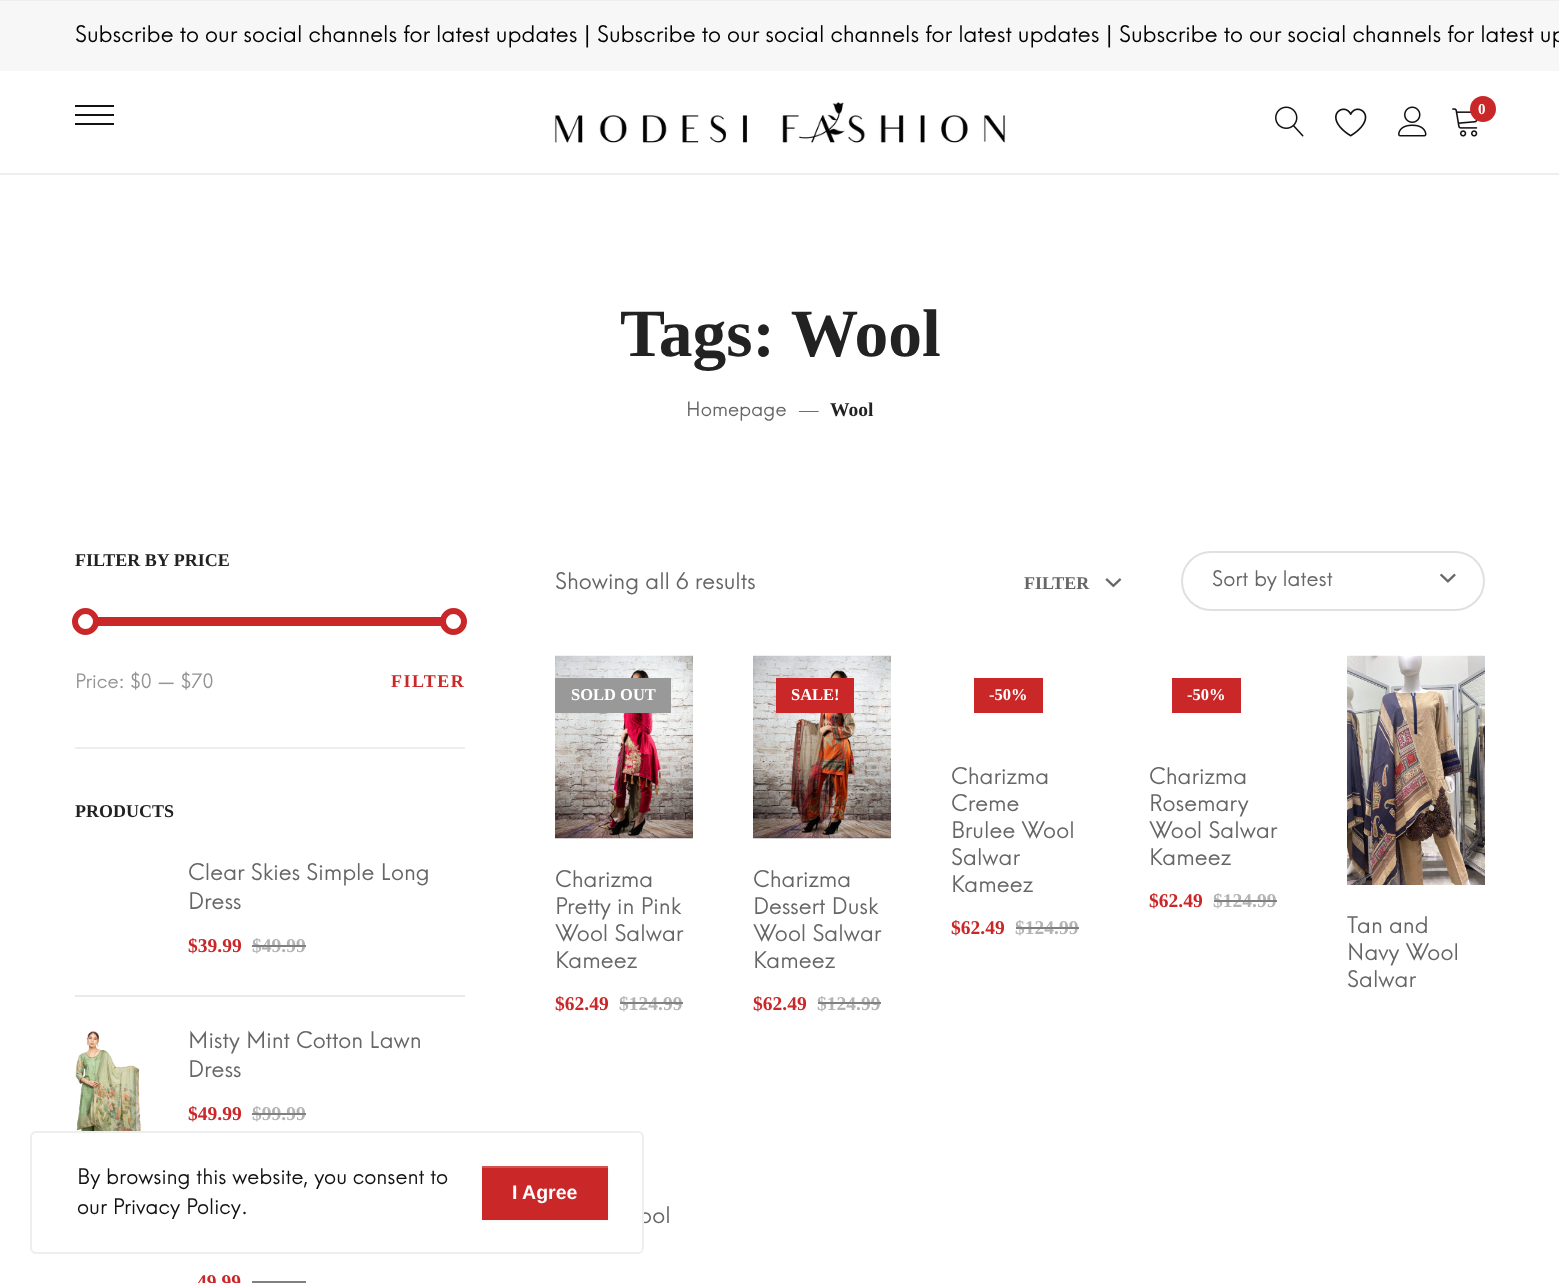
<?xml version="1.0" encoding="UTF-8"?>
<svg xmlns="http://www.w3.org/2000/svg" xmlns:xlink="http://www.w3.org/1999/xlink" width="1559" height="1283">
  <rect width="100%" height="100%" fill="#ffffff" />
  <rect width="1559" height="1" fill="#eeeeee" />
  <rect y="1" width="1559" height="70" fill="#f7f7f7" />
  <rect y="173" width="1559" height="2" fill="#eeeeee" />
  <rect x="75" y="114" width="39" height="2" fill="#111111" />
  <rect x="75" y="105" width="39" height="2" fill="#111111" />
  <rect x="75" y="123" width="39" height="2" fill="#111111" />
  <image x="554" y="100" width="452" height="45" xlink:href="image1.png" />
  <image x="1275" y="106" width="29" height="31" xlink:href="image2.png" />
  <image x="1335" y="108" width="32" height="29" xlink:href="image3.png" />
  <image x="1398" y="106" width="29" height="31" xlink:href="image4.png" />
  <image x="1452" y="108" width="26" height="29" xlink:href="image5.png" />
  <circle cx="1483" cy="109" r="13" fill="#ca2728" />
  <rect x="98" y="617" width="343" height="9" fill="#ca2728" />
  <circle cx="85.5" cy="621.5" r="10.5" fill="#ffffff" stroke="#ca2728" stroke-width="6" />
  <circle cx="453.5" cy="621.5" r="10.5" fill="#ffffff" stroke="#ca2728" stroke-width="6" />
  <rect x="75" y="747" width="390" height="2" fill="#eeeeee" />
  <rect x="75" y="995" width="390" height="2" fill="#eaeaec" />
  <image x="75" y="1031" width="68" height="100" xlink:href="image6.png" />
  <rect x="252" y="1281" width="54" height="2" fill="#808080" />
  <image x="1105" y="578" width="17" height="10" xlink:href="image7.png" />
  <rect x="1182" y="552" width="302" height="58" rx="29" fill="none" stroke="#e0e0e0" stroke-width="2" />
  <image x="1440" y="573" width="16" height="10" xlink:href="image8.png" />
  <image x="555" y="655" width="138" height="184" xlink:href="image9.png" />
  <rect x="555" y="678" width="116" height="35" fill="#999999" />
  <image x="753" y="655" width="138" height="184" xlink:href="image10.png" />
  <rect x="776" y="678" width="78" height="35" fill="#ca2728" />
  <rect x="974" y="678" width="69" height="35" fill="#ca2728" />
  <rect x="1172" y="678" width="69" height="35" fill="#ca2728" />
  <image x="1347" y="655" width="138" height="230" xlink:href="image11.png" />
  <text x="75" y="42" style="font-family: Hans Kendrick; font-size: 22.5px; fill: #000000">Subscribe to our social channels for latest updates | Subscribe to our social channels for latest updates | Subscribe to our social channels for latest up</text>
  <text x="1478" y="114" style="font-family: Liberation Serif; font-size: 15px; font-weight: bold; fill: #ffffff">0</text>
  <text x="620" y="356" style="font-family: Liberation Serif; font-size: 67.5px; font-weight: bold; fill: #222222">Tags: Wool</text>
  <text x="686" y="416" style="font-family: Hans Kendrick; font-size: 19.5px; fill: #666666">Homepage</text>
  <text x="799" y="416" style="font-family: Liberation Serif; font-size: 19.5px; fill: #666666">—</text>
  <text x="830" y="416" style="font-family: Liberation Serif; font-size: 19.5px; font-weight: bold; fill: #222222">Wool</text>
  <text x="75" y="566" style="font-family: Liberation Serif; font-size: 18px; font-weight: bold; fill: #222222">FILTER BY PRICE</text>
  <text x="75" y="688" style="font-family: Hans Kendrick; font-size: 19.5px; fill: #949494">Price: $0 — $70</text>
  <text x="391" y="687" style="font-family: Liberation Serif; font-size: 18px; font-weight: bold; letter-spacing: 1.5px; fill: #ca2728">FILTER</text>
  <text x="75" y="817" style="font-family: Liberation Serif; font-size: 18px; font-weight: bold; fill: #222222">PRODUCTS</text>
  <text x="188" y="880" style="font-family: Hans Kendrick; font-size: 22.5px; fill: #666666">Clear Skies Simple Long</text>
  <text x="188" y="909" style="font-family: Hans Kendrick; font-size: 22.5px; fill: #666666">Dress</text>
  <text x="188" y="952" style="font-family: Liberation Serif; font-size: 19.5px; font-weight: bold; fill: #ca2728">$39.99</text>
  <text x="252" y="952" style="font-family: Liberation Serif; font-size: 19.5px; font-weight: bold; fill: #b3b3b3">$49.99</text>
  <rect x="252" y="945" width="54" height="2" fill="#808080" />
  <text x="188" y="1048" style="font-family: Hans Kendrick; font-size: 22.5px; fill: #666666">Misty Mint Cotton Lawn</text>
  <text x="188" y="1077" style="font-family: Hans Kendrick; font-size: 22.5px; fill: #666666">Dress</text>
  <text x="188" y="1120" style="font-family: Liberation Serif; font-size: 19.5px; font-weight: bold; fill: #ca2728">$49.99</text>
  <text x="252" y="1120" style="font-family: Liberation Serif; font-size: 19.5px; font-weight: bold; fill: #b3b3b3">$99.99</text>
  <rect x="252" y="1113" width="54" height="2" fill="#808080" />
  <text x="197" y="1288" style="font-family: Liberation Serif; font-size: 19.5px; font-weight: bold; fill: #ca2728">49.99</text>
  <text x="555" y="589" style="font-family: Hans Kendrick; font-size: 22.5px; fill: #666666">Showing all 6 results</text>
  <text x="1024" y="589" style="font-family: Liberation Serif; font-size: 18px; font-weight: bold; fill: #666666">FILTER</text>
  <text x="1212" y="586" style="font-family: Hans Kendrick; font-size: 21px; fill: #666666">Sort by latest</text>
  <text x="571" y="700" style="font-family: Liberation Serif; font-size: 16.5px; font-weight: bold; fill: #ffffff">SOLD OUT</text>
  <text x="555" y="887" style="font-family: Hans Kendrick; font-size: 22.5px; fill: #666666">Charizma</text>
  <text x="555" y="914" style="font-family: Hans Kendrick; font-size: 22.5px; fill: #666666">Pretty in Pink</text>
  <text x="555" y="941" style="font-family: Hans Kendrick; font-size: 22.5px; fill: #666666">Wool Salwar</text>
  <text x="555" y="968" style="font-family: Hans Kendrick; font-size: 22.5px; fill: #666666">Kameez</text>
  <text x="555" y="1010" style="font-family: Liberation Serif; font-size: 19.5px; font-weight: bold; fill: #ca2728">$62.49</text>
  <text x="619" y="1010" style="font-family: Liberation Serif; font-size: 19.5px; font-weight: bold; fill: #b3b3b3">$124.99</text>
  <rect x="620" y="1002" width="63" height="2" fill="#808080" />
  <text x="791" y="700" style="font-family: Liberation Serif; font-size: 16.5px; font-weight: bold; fill: #ffffff">SALE!</text>
  <text x="753" y="887" style="font-family: Hans Kendrick; font-size: 22.5px; fill: #666666">Charizma</text>
  <text x="753" y="914" style="font-family: Hans Kendrick; font-size: 22.5px; fill: #666666">Dessert Dusk</text>
  <text x="753" y="941" style="font-family: Hans Kendrick; font-size: 22.5px; fill: #666666">Wool Salwar</text>
  <text x="753" y="968" style="font-family: Hans Kendrick; font-size: 22.5px; fill: #666666">Kameez</text>
  <text x="753" y="1010" style="font-family: Liberation Serif; font-size: 19.5px; font-weight: bold; fill: #ca2728">$62.49</text>
  <text x="817" y="1010" style="font-family: Liberation Serif; font-size: 19.5px; font-weight: bold; fill: #b3b3b3">$124.99</text>
  <rect x="818" y="1002" width="63" height="2" fill="#808080" />
  <text x="989" y="700" style="font-family: Liberation Serif; font-size: 16.5px; font-weight: bold; fill: #ffffff">-50%</text>
  <text x="951" y="784" style="font-family: Hans Kendrick; font-size: 22.5px; fill: #666666">Charizma</text>
  <text x="951" y="811" style="font-family: Hans Kendrick; font-size: 22.5px; fill: #666666">Creme</text>
  <text x="951" y="838" style="font-family: Hans Kendrick; font-size: 22.5px; fill: #666666">Brulee Wool</text>
  <text x="951" y="865" style="font-family: Hans Kendrick; font-size: 22.5px; fill: #666666">Salwar</text>
  <text x="951" y="892" style="font-family: Hans Kendrick; font-size: 22.5px; fill: #666666">Kameez</text>
  <text x="951" y="934" style="font-family: Liberation Serif; font-size: 19.5px; font-weight: bold; fill: #ca2728">$62.49</text>
  <text x="1015" y="934" style="font-family: Liberation Serif; font-size: 19.5px; font-weight: bold; fill: #b3b3b3">$124.99</text>
  <rect x="1016" y="927" width="63" height="2" fill="#808080" />
  <text x="1187" y="700" style="font-family: Liberation Serif; font-size: 16.5px; font-weight: bold; fill: #ffffff">-50%</text>
  <text x="1149" y="784" style="font-family: Hans Kendrick; font-size: 22.5px; fill: #666666">Charizma</text>
  <text x="1149" y="811" style="font-family: Hans Kendrick; font-size: 22.5px; fill: #666666">Rosemary</text>
  <text x="1149" y="838" style="font-family: Hans Kendrick; font-size: 22.5px; fill: #666666">Wool Salwar</text>
  <text x="1149" y="865" style="font-family: Hans Kendrick; font-size: 22.5px; fill: #666666">Kameez</text>
  <text x="1149" y="907" style="font-family: Liberation Serif; font-size: 19.5px; font-weight: bold; fill: #ca2728">$62.49</text>
  <text x="1213" y="907" style="font-family: Liberation Serif; font-size: 19.5px; font-weight: bold; fill: #b3b3b3">$124.99</text>
  <rect x="1214" y="900" width="63" height="2" fill="#808080" />
  <text x="1347" y="933" style="font-family: Hans Kendrick; font-size: 22.5px; fill: #666666">Tan and</text>
  <text x="1347" y="960" style="font-family: Hans Kendrick; font-size: 22.5px; fill: #666666">Navy Wool</text>
  <text x="1347" y="987" style="font-family: Hans Kendrick; font-size: 22.5px; fill: #666666">Salwar</text>
  <text x="639" y="1223" style="font-family: Hans Kendrick; font-size: 22.5px; fill: #666666">ool</text>
  <rect x="31" y="1132" width="612" height="121" rx="5" fill="#ffffff" stroke="#eeeeee" stroke-width="2" />
  <text x="77" y="1184" style="font-family: Hans Kendrick; font-size: 21px; fill: #111111">By browsing this website, you consent to</text>
  <text x="77" y="1214" style="font-family: Hans Kendrick; font-size: 21px; fill: #111111">our Privacy Policy.</text>
  <rect x="482" y="1167" width="126" height="54" fill="#000000" fill-opacity="0.05" filter="blur(1.5px)" />
  <rect x="482" y="1168" width="126" height="52" fill="#ca2728" />
  <rect x="482" y="1166" width="126" height="2" fill="#d55253" />
  <text x="512" y="1199" style="font-family: Liberation Sans; font-size: 19.5px; font-weight: bold; fill: #ffffff">I Agree</text>
</svg>
